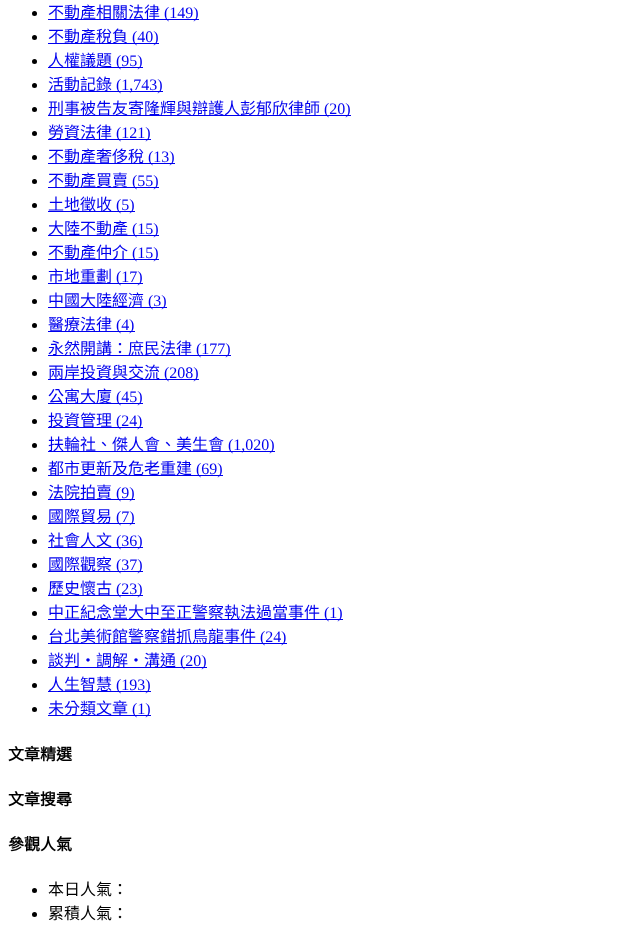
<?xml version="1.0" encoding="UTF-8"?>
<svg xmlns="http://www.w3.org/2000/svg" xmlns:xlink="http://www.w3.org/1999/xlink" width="641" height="940">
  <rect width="100%" height="100%" fill="#ffffff" />
  <circle cx="34.5" cy="13.5" r="2.5" fill="#000000" />
  <rect x="48" y="19" width="151" height="1" fill="#0000ee" />
  <circle cx="34.5" cy="37.5" r="2.5" fill="#000000" />
  <rect x="48" y="43" width="111" height="1" fill="#0000ee" />
  <circle cx="34.5" cy="61.5" r="2.5" fill="#000000" />
  <rect x="48" y="67" width="95" height="1" fill="#0000ee" />
  <circle cx="34.5" cy="85.5" r="2.5" fill="#000000" />
  <rect x="48" y="91" width="115" height="1" fill="#0000ee" />
  <circle cx="34.5" cy="109.5" r="2.5" fill="#000000" />
  <rect x="48" y="115" width="303" height="1" fill="#0000ee" />
  <circle cx="34.5" cy="133.5" r="2.5" fill="#000000" />
  <rect x="48" y="139" width="103" height="1" fill="#0000ee" />
  <circle cx="34.5" cy="157.5" r="2.5" fill="#000000" />
  <rect x="48" y="163" width="127" height="1" fill="#0000ee" />
  <circle cx="34.5" cy="181.5" r="2.5" fill="#000000" />
  <rect x="48" y="187" width="111" height="1" fill="#0000ee" />
  <circle cx="34.5" cy="205.5" r="2.5" fill="#000000" />
  <rect x="48" y="211" width="87" height="1" fill="#0000ee" />
  <circle cx="34.5" cy="229.5" r="2.5" fill="#000000" />
  <rect x="48" y="235" width="111" height="1" fill="#0000ee" />
  <circle cx="34.5" cy="253.5" r="2.5" fill="#000000" />
  <rect x="48" y="259" width="111" height="1" fill="#0000ee" />
  <circle cx="34.5" cy="277.5" r="2.5" fill="#000000" />
  <rect x="48" y="283" width="95" height="1" fill="#0000ee" />
  <circle cx="34.5" cy="301.5" r="2.5" fill="#000000" />
  <rect x="48" y="307" width="119" height="1" fill="#0000ee" />
  <circle cx="34.5" cy="325.5" r="2.5" fill="#000000" />
  <rect x="48" y="331" width="81" height="1" fill="#0000ee" />
  <rect x="129" y="331" width="6" height="1" fill="#0000ee" />
  <circle cx="34.5" cy="349.5" r="2.5" fill="#000000" />
  <rect x="48" y="355" width="183" height="1" fill="#0000ee" />
  <circle cx="34.5" cy="373.5" r="2.5" fill="#000000" />
  <rect x="48" y="379" width="151" height="1" fill="#0000ee" />
  <circle cx="34.5" cy="397.5" r="2.5" fill="#000000" />
  <rect x="48" y="403" width="95" height="1" fill="#0000ee" />
  <circle cx="34.5" cy="421.5" r="2.5" fill="#000000" />
  <rect x="48" y="427" width="89" height="1" fill="#0000ee" />
  <rect x="137" y="427" width="6" height="1" fill="#0000ee" />
  <circle cx="34.5" cy="445.5" r="2.5" fill="#000000" />
  <rect x="48" y="451" width="227" height="1" fill="#0000ee" />
  <circle cx="34.5" cy="469.5" r="2.5" fill="#000000" />
  <rect x="48" y="475" width="175" height="1" fill="#0000ee" />
  <circle cx="34.5" cy="493.5" r="2.5" fill="#000000" />
  <rect x="48" y="499" width="87" height="1" fill="#0000ee" />
  <circle cx="34.5" cy="517.5" r="2.5" fill="#000000" />
  <rect x="48" y="523" width="87" height="1" fill="#0000ee" />
  <circle cx="34.5" cy="541.5" r="2.5" fill="#000000" />
  <rect x="48" y="547" width="95" height="1" fill="#0000ee" />
  <circle cx="34.5" cy="565.5" r="2.5" fill="#000000" />
  <rect x="48" y="571" width="95" height="1" fill="#0000ee" />
  <circle cx="34.5" cy="589.5" r="2.5" fill="#000000" />
  <rect x="48" y="595" width="95" height="1" fill="#0000ee" />
  <circle cx="34.5" cy="613.5" r="2.5" fill="#000000" />
  <rect x="48" y="619" width="295" height="1" fill="#0000ee" />
  <circle cx="34.5" cy="637.5" r="2.5" fill="#000000" />
  <rect x="48" y="643" width="233" height="1" fill="#0000ee" />
  <rect x="281" y="643" width="6" height="1" fill="#0000ee" />
  <circle cx="34.5" cy="661.5" r="2.5" fill="#000000" />
  <rect x="48" y="667" width="159" height="1" fill="#0000ee" />
  <circle cx="34.5" cy="685.5" r="2.5" fill="#000000" />
  <rect x="48" y="691" width="103" height="1" fill="#0000ee" />
  <circle cx="34.5" cy="709.5" r="2.5" fill="#000000" />
  <rect x="48" y="715" width="103" height="1" fill="#0000ee" />
  <circle cx="34.5" cy="890.5" r="2.5" fill="#000000" />
  <circle cx="34.5" cy="914.5" r="2.5" fill="#000000" />
  <text x="48" y="18" style="font-family: Noto Sans CJK TC; font-size: 16px; fill: #0000ee">不動產相關法律</text>
  <text x="164" y="18" style="font-family: Liberation Serif; font-size: 16px; fill: #0000ee">(149)</text>
  <text x="48" y="42" style="font-family: Noto Sans CJK TC; font-size: 16px; fill: #0000ee">不動產稅負</text>
  <text x="132" y="42" style="font-family: Liberation Serif; font-size: 16px; fill: #0000ee">(40)</text>
  <text x="48" y="66" style="font-family: Noto Sans CJK TC; font-size: 16px; fill: #0000ee">人權議題</text>
  <text x="116" y="66" style="font-family: Liberation Serif; font-size: 16px; fill: #0000ee">(95)</text>
  <text x="48" y="90" style="font-family: Noto Sans CJK TC; font-size: 16px; fill: #0000ee">活動記錄</text>
  <text x="116" y="90" style="font-family: Liberation Serif; font-size: 16px; fill: #0000ee">(1,743)</text>
  <text x="48" y="114" style="font-family: Noto Sans CJK TC; font-size: 16px; fill: #0000ee">刑事被告友寄隆輝與辯護人彭郁欣律師</text>
  <text x="324" y="114" style="font-family: Liberation Serif; font-size: 16px; fill: #0000ee">(20)</text>
  <text x="48" y="138" style="font-family: Noto Sans CJK TC; font-size: 16px; fill: #0000ee">勞資法律</text>
  <text x="116" y="138" style="font-family: Liberation Serif; font-size: 16px; fill: #0000ee">(121)</text>
  <text x="48" y="162" style="font-family: Noto Sans CJK TC; font-size: 16px; fill: #0000ee">不動產奢侈稅</text>
  <text x="148" y="162" style="font-family: Liberation Serif; font-size: 16px; fill: #0000ee">(13)</text>
  <text x="48" y="186" style="font-family: Noto Sans CJK TC; font-size: 16px; fill: #0000ee">不動產買賣</text>
  <text x="132" y="186" style="font-family: Liberation Serif; font-size: 16px; fill: #0000ee">(55)</text>
  <text x="48" y="210" style="font-family: Noto Sans CJK TC; font-size: 16px; fill: #0000ee">土地徵收</text>
  <text x="116" y="210" style="font-family: Liberation Serif; font-size: 16px; fill: #0000ee">(5)</text>
  <text x="48" y="234" style="font-family: Noto Sans CJK TC; font-size: 16px; fill: #0000ee">大陸不動產</text>
  <text x="132" y="234" style="font-family: Liberation Serif; font-size: 16px; fill: #0000ee">(15)</text>
  <text x="48" y="258" style="font-family: Noto Sans CJK TC; font-size: 16px; fill: #0000ee">不動產仲介</text>
  <text x="132" y="258" style="font-family: Liberation Serif; font-size: 16px; fill: #0000ee">(15)</text>
  <text x="48" y="282" style="font-family: Noto Sans CJK TC; font-size: 16px; fill: #0000ee">市地重劃</text>
  <text x="116" y="282" style="font-family: Liberation Serif; font-size: 16px; fill: #0000ee">(17)</text>
  <text x="48" y="306" style="font-family: Noto Sans CJK TC; font-size: 16px; fill: #0000ee">中國大陸經濟</text>
  <text x="148" y="306" style="font-family: Liberation Serif; font-size: 16px; fill: #0000ee">(3)</text>
  <text x="48" y="330" style="font-family: Noto Sans CJK TC; font-size: 16px; fill: #0000ee">醫療法律</text>
  <text x="116" y="330" style="font-family: Liberation Serif; font-size: 16px; fill: #0000ee">(4</text>
  <text x="129" y="330" style="font-family: Liberation Serif; font-size: 16px; fill: #0000ee">)</text>
  <text x="48" y="354" style="font-family: Noto Sans CJK TC; font-size: 16px; fill: #0000ee">永然開講：庶民法律</text>
  <text x="196" y="354" style="font-family: Liberation Serif; font-size: 16px; fill: #0000ee">(177)</text>
  <text x="48" y="378" style="font-family: Noto Sans CJK TC; font-size: 16px; fill: #0000ee">兩岸投資與交流</text>
  <text x="164" y="378" style="font-family: Liberation Serif; font-size: 16px; fill: #0000ee">(208)</text>
  <text x="48" y="402" style="font-family: Noto Sans CJK TC; font-size: 16px; fill: #0000ee">公寓大廈</text>
  <text x="116" y="402" style="font-family: Liberation Serif; font-size: 16px; fill: #0000ee">(45)</text>
  <text x="48" y="426" style="font-family: Noto Sans CJK TC; font-size: 16px; fill: #0000ee">投資管理</text>
  <text x="116" y="426" style="font-family: Liberation Serif; font-size: 16px; fill: #0000ee">(24</text>
  <text x="137" y="426" style="font-family: Liberation Serif; font-size: 16px; fill: #0000ee">)</text>
  <text x="48" y="450" style="font-family: Noto Sans CJK TC; font-size: 16px; fill: #0000ee">扶輪社、傑人會、美生會</text>
  <text x="228" y="450" style="font-family: Liberation Serif; font-size: 16px; fill: #0000ee">(1,020)</text>
  <text x="48" y="474" style="font-family: Noto Sans CJK TC; font-size: 16px; fill: #0000ee">都市更新及危老重建</text>
  <text x="196" y="474" style="font-family: Liberation Serif; font-size: 16px; fill: #0000ee">(69)</text>
  <text x="48" y="498" style="font-family: Noto Sans CJK TC; font-size: 16px; fill: #0000ee">法院拍賣</text>
  <text x="116" y="498" style="font-family: Liberation Serif; font-size: 16px; fill: #0000ee">(9)</text>
  <text x="48" y="522" style="font-family: Noto Sans CJK TC; font-size: 16px; fill: #0000ee">國際貿易</text>
  <text x="116" y="522" style="font-family: Liberation Serif; font-size: 16px; fill: #0000ee">(7)</text>
  <text x="48" y="546" style="font-family: Noto Sans CJK TC; font-size: 16px; fill: #0000ee">社會人文</text>
  <text x="116" y="546" style="font-family: Liberation Serif; font-size: 16px; fill: #0000ee">(36)</text>
  <text x="48" y="570" style="font-family: Noto Sans CJK TC; font-size: 16px; fill: #0000ee">國際觀察</text>
  <text x="116" y="570" style="font-family: Liberation Serif; font-size: 16px; fill: #0000ee">(37)</text>
  <text x="48" y="594" style="font-family: Noto Sans CJK TC; font-size: 16px; fill: #0000ee">歷史懷古</text>
  <text x="116" y="594" style="font-family: Liberation Serif; font-size: 16px; fill: #0000ee">(23)</text>
  <text x="48" y="618" style="font-family: Noto Sans CJK TC; font-size: 16px; fill: #0000ee">中正紀念堂大中至正警察執法過當事件</text>
  <text x="324" y="618" style="font-family: Liberation Serif; font-size: 16px; fill: #0000ee">(1)</text>
  <text x="48" y="642" style="font-family: Noto Sans CJK TC; font-size: 16px; fill: #0000ee">台北美術館警察錯抓鳥龍事件</text>
  <text x="260" y="642" style="font-family: Liberation Serif; font-size: 16px; fill: #0000ee">(24</text>
  <text x="281" y="642" style="font-family: Liberation Serif; font-size: 16px; fill: #0000ee">)</text>
  <text x="48" y="666" style="font-family: Noto Sans CJK TC; font-size: 16px; fill: #0000ee">談判‧調解‧溝通</text>
  <text x="180" y="666" style="font-family: Liberation Serif; font-size: 16px; fill: #0000ee">(20)</text>
  <text x="48" y="690" style="font-family: Noto Sans CJK TC; font-size: 16px; fill: #0000ee">人生智慧</text>
  <text x="116" y="690" style="font-family: Liberation Serif; font-size: 16px; fill: #0000ee">(193)</text>
  <text x="48" y="714" style="font-family: Noto Sans CJK TC; font-size: 16px; fill: #0000ee">未分類文章</text>
  <text x="132" y="714" style="font-family: Liberation Serif; font-size: 16px; fill: #0000ee">(1)</text>
  <text x="8" y="760" style="font-family: Noto Sans CJK TC; font-size: 16px; font-weight: bold; fill: #000000">文章精選</text>
  <text x="8" y="805" style="font-family: Noto Sans CJK TC; font-size: 16px; font-weight: bold; fill: #000000">文章搜尋</text>
  <text x="8" y="850" style="font-family: Noto Sans CJK TC; font-size: 16px; font-weight: bold; fill: #000000">參觀人氣</text>
  <text x="48" y="895" style="font-family: Noto Sans CJK TC; font-size: 16px; fill: #000000">本日人氣：</text>
  <text x="48" y="919" style="font-family: Noto Sans CJK TC; font-size: 16px; fill: #000000">累積人氣：</text>
</svg>
